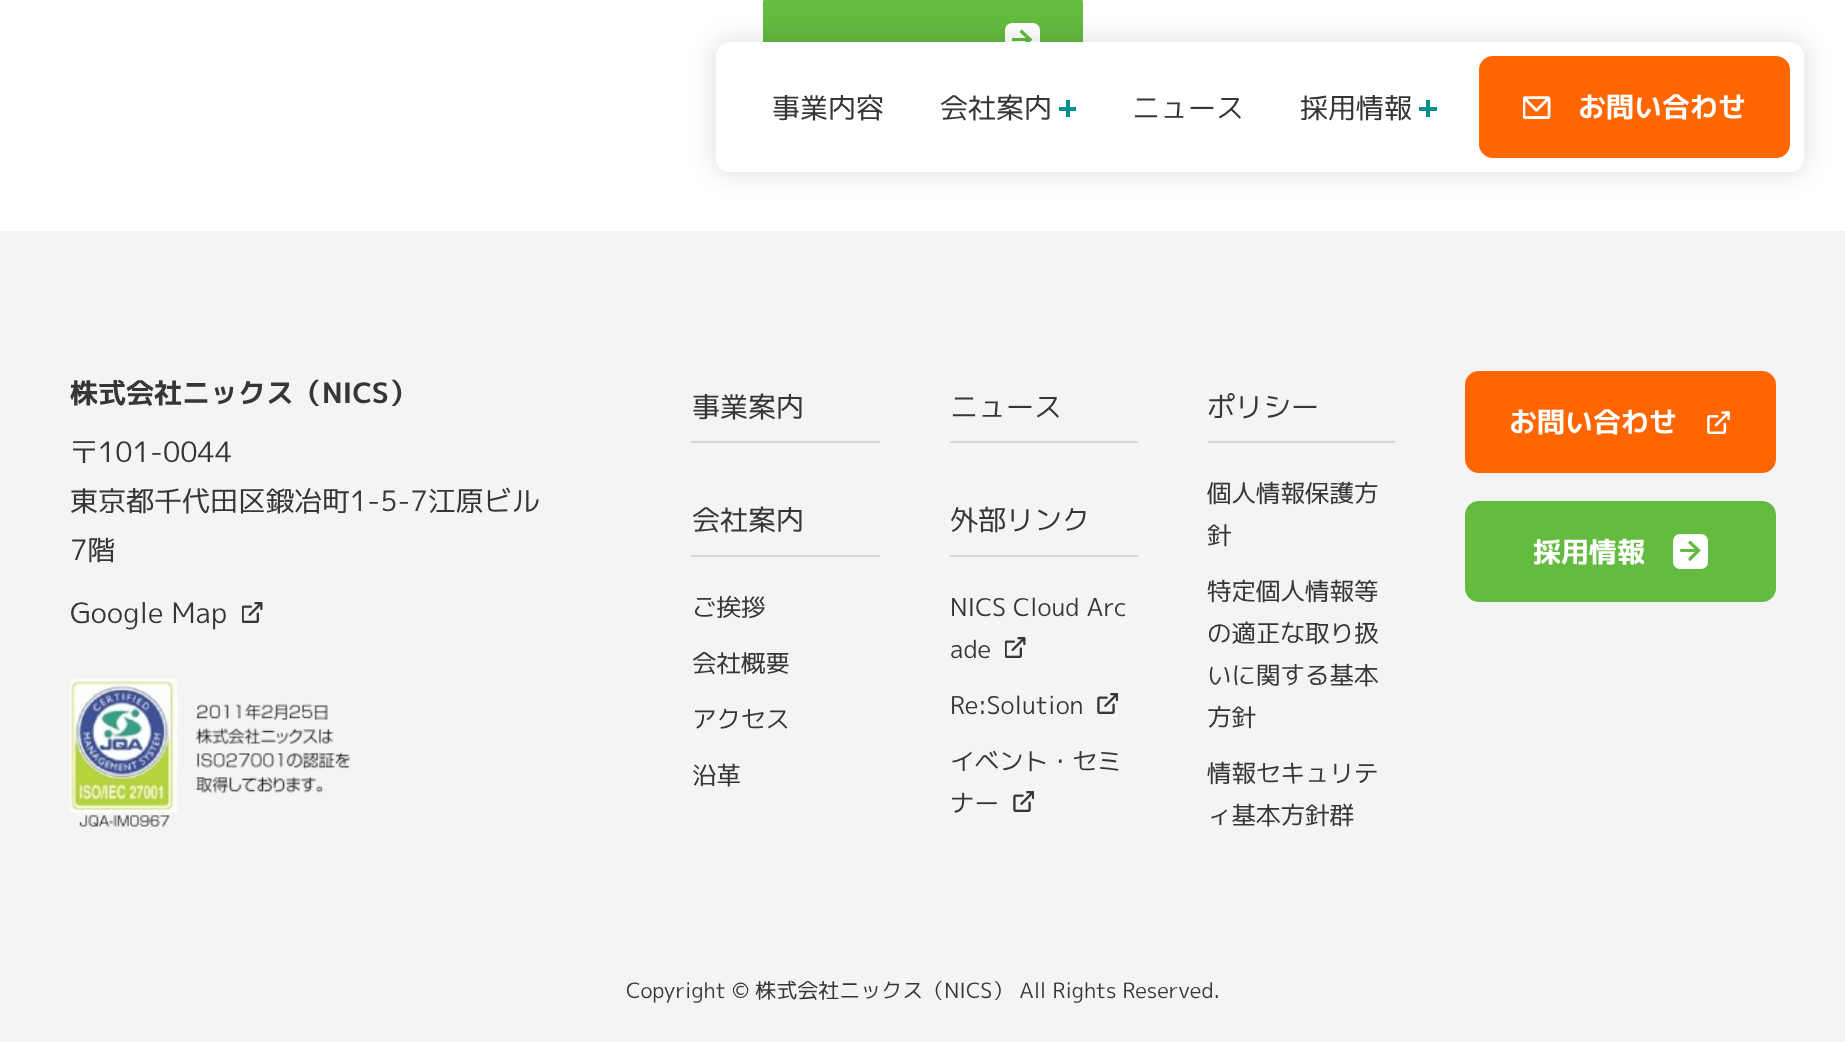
<?xml version="1.0" encoding="UTF-8"?>
<svg xmlns="http://www.w3.org/2000/svg" xmlns:xlink="http://www.w3.org/1999/xlink" width="1845" height="1042">
  <defs>
    <clipPath id="clip1"><rect x="1012" y="30" width="21" height="21" /></clipPath>
  </defs>
  <rect width="100%" height="100%" fill="#ffffff" />
  <rect x="764" y="-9" width="318" height="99" rx="13" fill="#63bb3f" stroke="#63bb3f" stroke-width="2" />
  <rect x="1005" y="23" width="35" height="35" rx="7" fill="#ffffff" />
  <path d="M 1021.5 31.5 l 8.5 8 l -8.5 8.5" fill="none" stroke="#63bb3f" stroke-width="3.2" stroke-linecap="round" />
  <g clip-path="url(#clip1)">
    <path d="M 1030 39.5 h -17" fill="none" stroke="#63bb3f" stroke-width="3.2" stroke-linecap="round" />
  </g>
  <rect x="716" y="42" width="1088" height="130" rx="14" fill="#000000" fill-opacity="0.15" filter="blur(14px)" />
  <rect x="716" y="42" width="1088" height="130" rx="14" fill="#ffffff" />
  <rect x="1059" y="107" width="17" height="4" fill="#009193" />
  <rect x="1066" y="100" width="4" height="17" fill="#009193" />
  <rect x="1419" y="107" width="18" height="4" fill="#009193" />
  <rect x="1426" y="100" width="4" height="17" fill="#009193" />
  <rect x="1480" y="57" width="309" height="100" rx="13" fill="#ff6600" stroke="#ff6600" stroke-width="2" />
  <image x="1523" y="96" width="28" height="23" xlink:href="image1.png" />
  <rect y="231" width="1845" height="811" fill="#f4f4f4" />
  <image x="242" y="602" width="21" height="21" xlink:href="image2.png" />
  <image x="70" y="679" width="280" height="148" xlink:href="image3.png" />
  <rect x="691" y="441" width="189" height="2" fill="#d6d6d6" />
  <rect x="691" y="555" width="189" height="2" fill="#d6d6d6" />
  <rect x="950" y="441" width="188" height="2" fill="#d6d6d6" />
  <rect x="950" y="555" width="188" height="2" fill="#d6d6d6" />
  <image x="1005" y="637" width="21" height="21" xlink:href="image2.png" />
  <image x="1097" y="693" width="21" height="21" xlink:href="image4.png" />
  <image x="1013" y="791" width="21" height="21" xlink:href="image4.png" />
  <rect x="1208" y="441" width="187" height="2" fill="#d6d6d6" />
  <rect x="1466" y="372" width="309" height="100" rx="13" fill="#ff6600" stroke="#ff6600" stroke-width="2" />
  <image x="1707" y="411" width="23" height="23" xlink:href="image5.png" />
  <rect x="1466" y="502" width="309" height="99" rx="13" fill="#63bb3f" stroke="#63bb3f" stroke-width="2" />
  <rect x="1673" y="534" width="35" height="35" rx="7" fill="#ffffff" />
  <path d="M 1690 542.5 l 8.5 8 l -8.5 8.5 m 8.5 -8.5 h -17" fill="none" stroke="#63bb3f" stroke-width="3.2" stroke-linecap="round" />
  <text x="772" y="118" style="font-family: 'M PLUS 1p'; font-size: 28px; fill: #363636">事業内容</text>
  <text x="940" y="118" style="font-family: 'M PLUS 1p'; font-size: 28px; fill: #363636">会社案内</text>
  <text x="1132" y="118" style="font-family: 'M PLUS 1p'; font-size: 28px; fill: #363636">ニュース</text>
  <text x="1300" y="118" style="font-family: 'M PLUS 1p'; font-size: 28px; fill: #363636">採用情報</text>
  <text x="1578" y="117" style="font-family: 'M PLUS 1p'; font-size: 28px; font-weight: bold; fill: #ffffff">お問い合わせ</text>
  <text x="70" y="403" style="font-family: 'M PLUS 1p'; font-size: 28px; font-weight: bold; fill: #363636">株式会社ニックス（NICS）</text>
  <text x="70" y="462" style="font-family: 'M PLUS 1p'; font-size: 28px; fill: #363636">〒101-0044</text>
  <text x="70" y="511" style="font-family: 'M PLUS 1p'; font-size: 28px; fill: #363636">東京都千代田区鍛冶町1-5-7江原ビル</text>
  <text x="70" y="560" style="font-family: 'M PLUS 1p'; font-size: 28px; fill: #363636">7階</text>
  <text x="70" y="623" style="font-family: 'M PLUS 1p'; font-size: 28px; fill: #363636">Google Map</text>
  <text x="692" y="417" style="font-family: 'M PLUS 1p'; font-size: 28px; fill: #363636">事業案内</text>
  <text x="692" y="530" style="font-family: 'M PLUS 1p'; font-size: 28px; fill: #363636">会社案内</text>
  <text x="692" y="616" style="font-family: 'M PLUS 1p'; font-size: 24.5px; fill: #363636">ご挨拶</text>
  <text x="692" y="672" style="font-family: 'M PLUS 1p'; font-size: 24.5px; fill: #363636">会社概要</text>
  <text x="692" y="728" style="font-family: 'M PLUS 1p'; font-size: 24.5px; fill: #363636">アクセス</text>
  <text x="692" y="784" style="font-family: 'M PLUS 1p'; font-size: 24.5px; fill: #363636">沿革</text>
  <text x="950" y="417" style="font-family: 'M PLUS 1p'; font-size: 28px; fill: #363636">ニュース</text>
  <text x="950" y="530" style="font-family: 'M PLUS 1p'; font-size: 28px; fill: #363636">外部リンク</text>
  <text x="950" y="616" style="font-family: 'M PLUS 1p'; font-size: 24.5px; fill: #363636">NICS Cloud Arc</text>
  <text x="950" y="658" style="font-family: 'M PLUS 1p'; font-size: 24.5px; fill: #363636">ade</text>
  <text x="950" y="714" style="font-family: 'M PLUS 1p'; font-size: 24.5px; fill: #363636">Re:Solution</text>
  <text x="950" y="770" style="font-family: 'M PLUS 1p'; font-size: 24.5px; fill: #363636">イベント・セミ</text>
  <text x="950" y="812" style="font-family: 'M PLUS 1p'; font-size: 24.5px; fill: #363636">ナー</text>
  <text x="1207" y="417" style="font-family: 'M PLUS 1p'; font-size: 28px; fill: #363636">ポリシー</text>
  <text x="1207" y="502" style="font-family: 'M PLUS 1p'; font-size: 24.5px; fill: #363636">個人情報保護方</text>
  <text x="1207" y="544" style="font-family: 'M PLUS 1p'; font-size: 24.5px; fill: #363636">針</text>
  <text x="1207" y="600" style="font-family: 'M PLUS 1p'; font-size: 24.5px; fill: #363636">特定個人情報等</text>
  <text x="1207" y="642" style="font-family: 'M PLUS 1p'; font-size: 24.5px; fill: #363636">の適正な取り扱</text>
  <text x="1207" y="684" style="font-family: 'M PLUS 1p'; font-size: 24.5px; fill: #363636">いに関する基本</text>
  <text x="1207" y="726" style="font-family: 'M PLUS 1p'; font-size: 24.5px; fill: #363636">方針</text>
  <text x="1207" y="782" style="font-family: 'M PLUS 1p'; font-size: 24.5px; fill: #363636">情報セキュリテ</text>
  <text x="1207" y="824" style="font-family: 'M PLUS 1p'; font-size: 24.5px; fill: #363636">ィ基本方針群</text>
  <text x="1509" y="432" style="font-family: 'M PLUS 1p'; font-size: 28px; font-weight: bold; fill: #ffffff">お問い合わせ</text>
  <text x="1533" y="562" style="font-family: 'M PLUS 1p'; font-size: 28px; font-weight: bold; fill: #ffffff">採用情報</text>
  <text x="626" y="998" style="font-family: 'M PLUS 1p'; font-size: 21px; fill: #363636">Copyright © 株式会社ニックス（NICS） All Rights Reserved.</text>
</svg>
